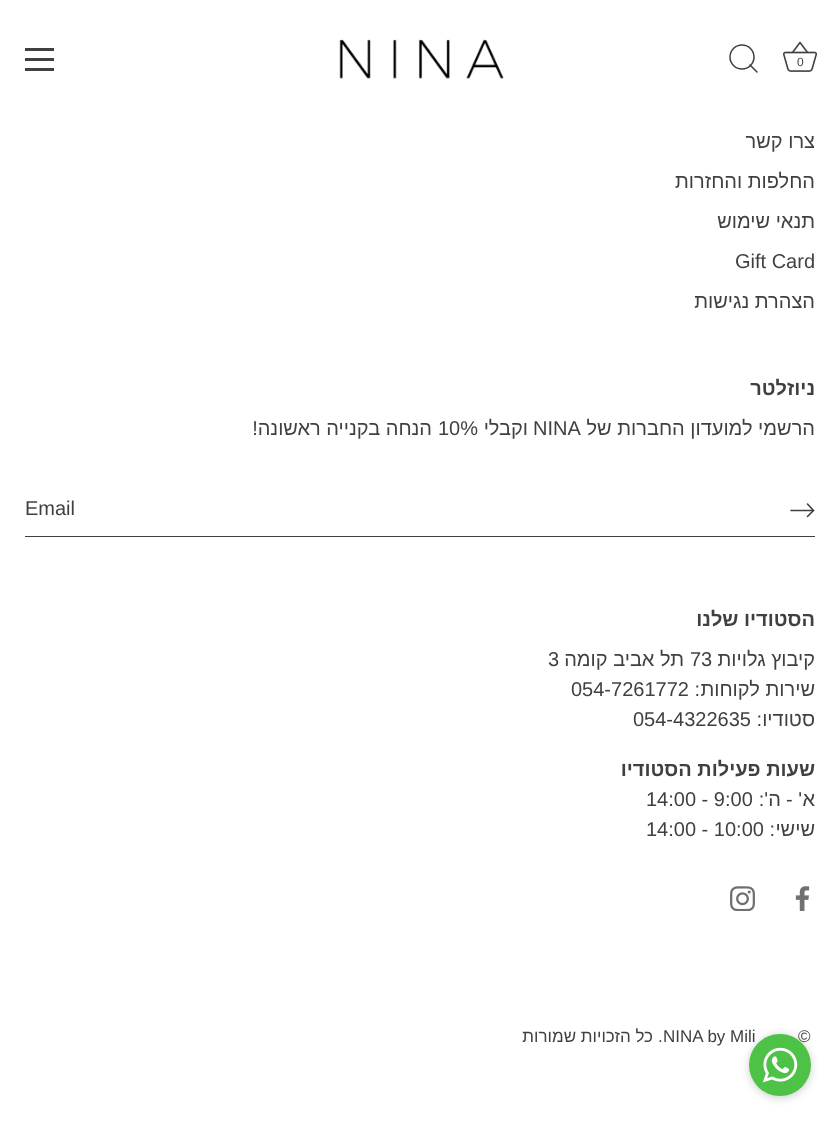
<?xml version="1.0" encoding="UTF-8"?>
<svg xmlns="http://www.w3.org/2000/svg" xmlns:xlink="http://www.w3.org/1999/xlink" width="840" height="1122">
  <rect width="100%" height="100%" fill="#ffffff" />
  <image x="783" y="41" width="34" height="31" xlink:href="image1.png" />
  <circle cx="742" cy="57" r="12" fill="none" stroke="#423f3f" stroke-width="1.5" />
  <path d="M 757 72 l -7 -7" fill="none" stroke="#423f3f" stroke-width="1.5" stroke-linecap="round" stroke-linejoin="round" />
  <image x="339" y="39" width="165" height="40" xlink:href="image2.png" />
  <rect x="25" y="48" width="29" height="3" fill="#423f3f" />
  <rect x="25" y="58" width="29" height="3" fill="#423f3f" />
  <rect x="25" y="68" width="29" height="3" fill="#423f3f" />
  <path d="M 807.5 516.5 l 6 -6 l -6 -6.5" fill="none" stroke="#423f3f" stroke-width="1.6" stroke-linecap="round" />
  <path d="M 813 510.5 h -22" fill="none" stroke="#423f3f" stroke-width="1.6" stroke-linecap="round" stroke-linejoin="round" />
  <rect x="25" y="536" width="790" height="1" fill="#423f3f" />
  <image x="795" y="886" width="15" height="25" xlink:href="image3.png" />
  <image x="730" y="886" width="25" height="25" xlink:href="image4.png" />
  <rect x="749" y="1035" width="62" height="63" rx="31" fill="#888888" fill-opacity="0.4" filter="blur(4.5px)" />
  <text x="797" y="66" style="font-family: Arimo; font-size: 12px; fill: #423f3f">0</text>
  <text x="815" y="148" style="font-family: Liberation Sans; font-size: 20px; direction: rtl; fill: #423f3f">צרו קשר</text>
  <text x="815" y="188" style="font-family: Liberation Sans; font-size: 20px; direction: rtl; fill: #423f3f">החלפות והחזרות</text>
  <text x="815" y="228" style="font-family: Liberation Sans; font-size: 20px; direction: rtl; fill: #423f3f">תנאי שימוש</text>
  <text x="735" y="268" style="font-family: Arimo; font-size: 20px; fill: #423f3f">Gift Card</text>
  <text x="815" y="308" style="font-family: Liberation Sans; font-size: 20px; direction: rtl; fill: #423f3f">הצהרת נגישות</text>
  <text x="815" y="395" style="font-family: Liberation Sans; font-size: 20px; font-weight: bold; direction: rtl; fill: #423f3f">ניוזלטר</text>
  <text x="815" y="435" style="font-family: Liberation Sans; font-size: 20px; direction: rtl; fill: #423f3f">הרשמי למועדון החברות של</text>
  <text x="533" y="435" style="font-family: Liberation Sans; font-size: 20px; fill: #423f3f">NINA</text>
  <text x="528" y="435" style="font-family: Liberation Sans; font-size: 20px; direction: rtl; fill: #423f3f">וקבלי</text>
  <text x="438" y="435" style="font-family: Liberation Sans; font-size: 20px; fill: #423f3f">10%</text>
  <text x="432" y="435" style="font-family: Liberation Sans; font-size: 20px; direction: rtl; fill: #423f3f">הנחה בקנייה ראשונה!</text>
  <text x="25" y="515" style="font-family: Arimo; font-size: 20px; fill: #423f3f">Email</text>
  <text x="815" y="626" style="font-family: Liberation Sans; font-size: 20px; font-weight: bold; direction: rtl; fill: #423f3f">הסטודיו שלנו</text>
  <text x="815" y="666" style="font-family: Liberation Sans; font-size: 20px; direction: rtl; fill: #423f3f">קיבוץ גלויות</text>
  <text x="690" y="666" style="font-family: Liberation Sans; font-size: 20px; fill: #423f3f">73</text>
  <text x="684" y="666" style="font-family: Liberation Sans; font-size: 20px; direction: rtl; fill: #423f3f">תל אביב קומה</text>
  <text x="548" y="666" style="font-family: Liberation Sans; font-size: 20px; fill: #423f3f">3</text>
  <text x="815" y="696" style="font-family: Liberation Sans; font-size: 20px; direction: rtl; fill: #423f3f">שירות לקוחות</text>
  <text x="700" y="696" style="font-family: Arimo; font-size: 20px; direction: rtl; fill: #423f3f">:</text>
  <text x="571" y="696" style="font-family: Arimo; font-size: 20px; fill: #423f3f">054-7261772</text>
  <text x="815" y="726" style="font-family: Liberation Sans; font-size: 20px; direction: rtl; fill: #423f3f">סטודיו</text>
  <text x="762" y="726" style="font-family: Arimo; font-size: 20px; direction: rtl; fill: #423f3f">:</text>
  <text x="633" y="726" style="font-family: Arimo; font-size: 20px; fill: #423f3f">054-4322635</text>
  <text x="815" y="776" style="font-family: Liberation Sans; font-size: 20px; font-weight: bold; direction: rtl; fill: #423f3f">שעות פעילות הסטודיו</text>
  <text x="815" y="806" style="font-family: Liberation Sans; font-size: 20px; direction: rtl; fill: #423f3f">א</text>
  <text x="802" y="806" style="font-family: Arimo; font-size: 20px; direction: rtl; fill: #423f3f">' -</text>
  <text x="781" y="806" style="font-family: Liberation Sans; font-size: 20px; direction: rtl; fill: #423f3f">ה</text>
  <text x="768" y="806" style="font-family: Arimo; font-size: 20px; direction: rtl; fill: #423f3f">':</text>
  <text x="646" y="806" style="font-family: Arimo; font-size: 20px; fill: #423f3f">14:00 - 9:00</text>
  <text x="815" y="836" style="font-family: Liberation Sans; font-size: 20px; direction: rtl; fill: #423f3f">שישי</text>
  <text x="775" y="836" style="font-family: Arimo; font-size: 20px; direction: rtl; fill: #423f3f">:</text>
  <text x="646" y="836" style="font-family: Arimo; font-size: 20px; fill: #423f3f">14:00 - 10:00</text>
  <text x="798" y="1042" style="font-family: Arimo; font-size: 17px; fill: #423f3f">©</text>
  <text x="663" y="1042" style="font-family: Arimo; font-size: 17px; fill: #423f3f">NINA by Mili</text>
  <text x="658" y="1042" style="font-family: Arimo; font-size: 17px; fill: #423f3f">.</text>
  <text x="653" y="1042" style="font-family: Liberation Sans; font-size: 17px; direction: rtl; fill: #423f3f">כל הזכויות שמורות</text>
  <circle cx="780" cy="1065" r="31" fill="#4dc247" />
  <image x="762" y="1047" width="36" height="36" xlink:href="image5.png" />
</svg>
